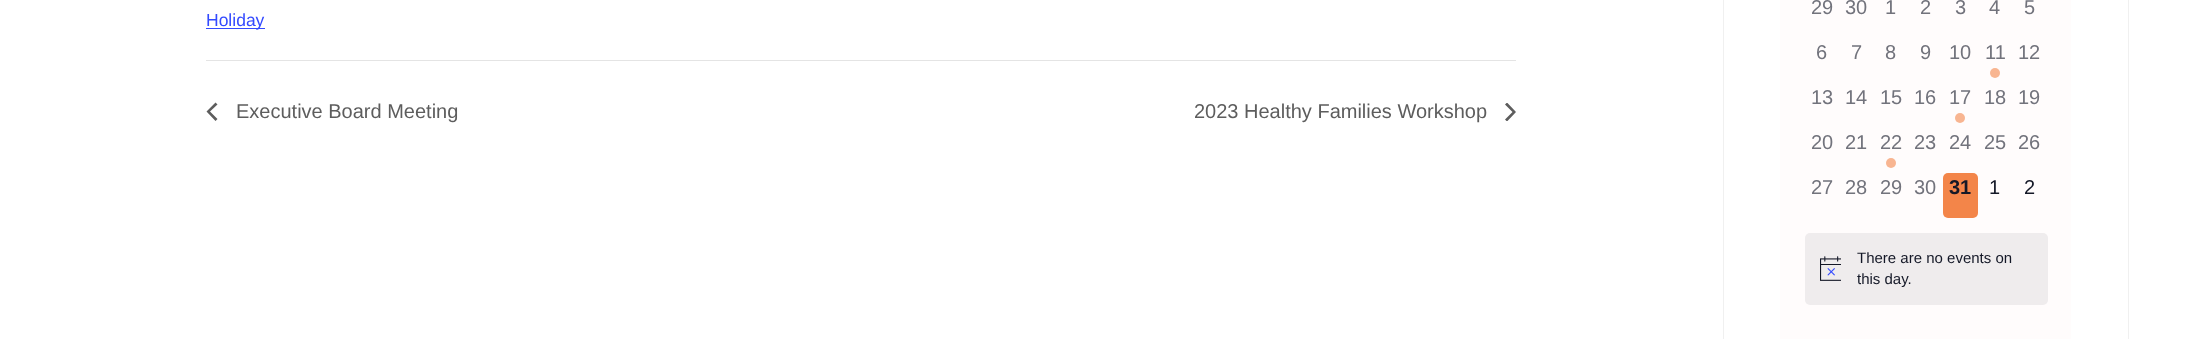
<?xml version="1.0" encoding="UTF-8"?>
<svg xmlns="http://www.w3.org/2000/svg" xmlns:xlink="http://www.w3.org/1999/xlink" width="2191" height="339">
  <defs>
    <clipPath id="clip1"><rect x="1505" y="103" width="11" height="18" /></clipPath>
  </defs>
  <rect width="100%" height="100%" fill="#ffffff" />
  <rect x="206" y="28" width="59" height="1" fill="#334aff" />
  <rect x="206" y="60" width="1310" height="1" fill="#e4e4e4" />
  <path d="M 217.5 119 l -2 2 l -9 -9.5 l 9 -9 l 2 2 l -7.5 7 z" fill="#5d5d5d" />
  <g clip-path="url(#clip1)">
    <path d="M 1505 104.5 l 2 -2 l 9 9.5 l -9 9.5 l -2 -2 l 7.5 -7.5 z" fill="#5d5d5d" />
  </g>
  <rect x="1723.5" y="-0.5" width="405" height="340" fill="none" stroke="#f0f0f0" />
  <rect x="1780" width="291" height="339" fill="#fffcfc" />
  <circle cx="1995" cy="73" r="5" fill="#f8b591" />
  <circle cx="1960" cy="118" r="5" fill="#f8b591" />
  <circle cx="1891" cy="163" r="5" fill="#f8b591" />
  <rect x="1943" y="173" width="35" height="45" rx="5" fill="#f38549" />
  <rect x="1805" y="233" width="243" height="72" rx="5" fill="#efeced" />
  <image x="1820" y="256" width="21" height="25" xlink:href="image1.png" />
  <text x="206" y="26" style="font-family: Liberation Sans; font-size: 17.5px; fill: #334aff">Holiday</text>
  <text x="236" y="118" style="font-family: Liberation Sans; font-size: 20px; fill: #5d5d5d">Executive Board Meeting</text>
  <text x="1194" y="118" style="font-family: Liberation Sans; font-size: 20px; fill: #5d5d5d">2023 Healthy Families Workshop</text>
  <text x="1811" y="14" style="font-family: Liberation Sans; font-size: 20px; fill: #72737c">29</text>
  <text x="1845" y="14" style="font-family: Liberation Sans; font-size: 20px; fill: #72737c">30</text>
  <text x="1885" y="14" style="font-family: Liberation Sans; font-size: 20px; fill: #72737c">1</text>
  <text x="1920" y="14" style="font-family: Liberation Sans; font-size: 20px; fill: #72737c">2</text>
  <text x="1955" y="14" style="font-family: Liberation Sans; font-size: 20px; fill: #72737c">3</text>
  <text x="1989" y="14" style="font-family: Liberation Sans; font-size: 20px; fill: #72737c">4</text>
  <text x="2024" y="14" style="font-family: Liberation Sans; font-size: 20px; fill: #72737c">5</text>
  <text x="1816" y="59" style="font-family: Liberation Sans; font-size: 20px; fill: #72737c">6</text>
  <text x="1851" y="59" style="font-family: Liberation Sans; font-size: 20px; fill: #72737c">7</text>
  <text x="1885" y="59" style="font-family: Liberation Sans; font-size: 20px; fill: #72737c">8</text>
  <text x="1920" y="59" style="font-family: Liberation Sans; font-size: 20px; fill: #72737c">9</text>
  <text x="1949" y="59" style="font-family: Liberation Sans; font-size: 20px; fill: #72737c">10</text>
  <text x="1985" y="59" style="font-family: Liberation Sans; font-size: 20px; fill: #72737c">11</text>
  <text x="2018" y="59" style="font-family: Liberation Sans; font-size: 20px; fill: #72737c">12</text>
  <text x="1811" y="104" style="font-family: Liberation Sans; font-size: 20px; fill: #72737c">13</text>
  <text x="1845" y="104" style="font-family: Liberation Sans; font-size: 20px; fill: #72737c">14</text>
  <text x="1880" y="104" style="font-family: Liberation Sans; font-size: 20px; fill: #72737c">15</text>
  <text x="1914" y="104" style="font-family: Liberation Sans; font-size: 20px; fill: #72737c">16</text>
  <text x="1949" y="104" style="font-family: Liberation Sans; font-size: 20px; fill: #72737c">17</text>
  <text x="1984" y="104" style="font-family: Liberation Sans; font-size: 20px; fill: #72737c">18</text>
  <text x="2018" y="104" style="font-family: Liberation Sans; font-size: 20px; fill: #72737c">19</text>
  <text x="1811" y="149" style="font-family: Liberation Sans; font-size: 20px; fill: #72737c">20</text>
  <text x="1845" y="149" style="font-family: Liberation Sans; font-size: 20px; fill: #72737c">21</text>
  <text x="1880" y="149" style="font-family: Liberation Sans; font-size: 20px; fill: #72737c">22</text>
  <text x="1914" y="149" style="font-family: Liberation Sans; font-size: 20px; fill: #72737c">23</text>
  <text x="1949" y="149" style="font-family: Liberation Sans; font-size: 20px; fill: #72737c">24</text>
  <text x="1984" y="149" style="font-family: Liberation Sans; font-size: 20px; fill: #72737c">25</text>
  <text x="2018" y="149" style="font-family: Liberation Sans; font-size: 20px; fill: #72737c">26</text>
  <text x="1811" y="194" style="font-family: Liberation Sans; font-size: 20px; fill: #72737c">27</text>
  <text x="1845" y="194" style="font-family: Liberation Sans; font-size: 20px; fill: #72737c">28</text>
  <text x="1880" y="194" style="font-family: Liberation Sans; font-size: 20px; fill: #72737c">29</text>
  <text x="1914" y="194" style="font-family: Liberation Sans; font-size: 20px; fill: #72737c">30</text>
  <text x="1949" y="194" style="font-family: Liberation Sans; font-size: 20px; font-weight: bold; fill: #141827">31</text>
  <text x="1989" y="194" style="font-family: Liberation Sans; font-size: 20px; fill: #141827">1</text>
  <text x="2024" y="194" style="font-family: Liberation Sans; font-size: 20px; fill: #141827">2</text>
  <text x="1857" y="263" style="font-family: Liberation Sans; font-size: 15px; fill: #141827">There are no events on</text>
  <text x="1857" y="284" style="font-family: Liberation Sans; font-size: 15px; fill: #141827">this day.</text>
</svg>
